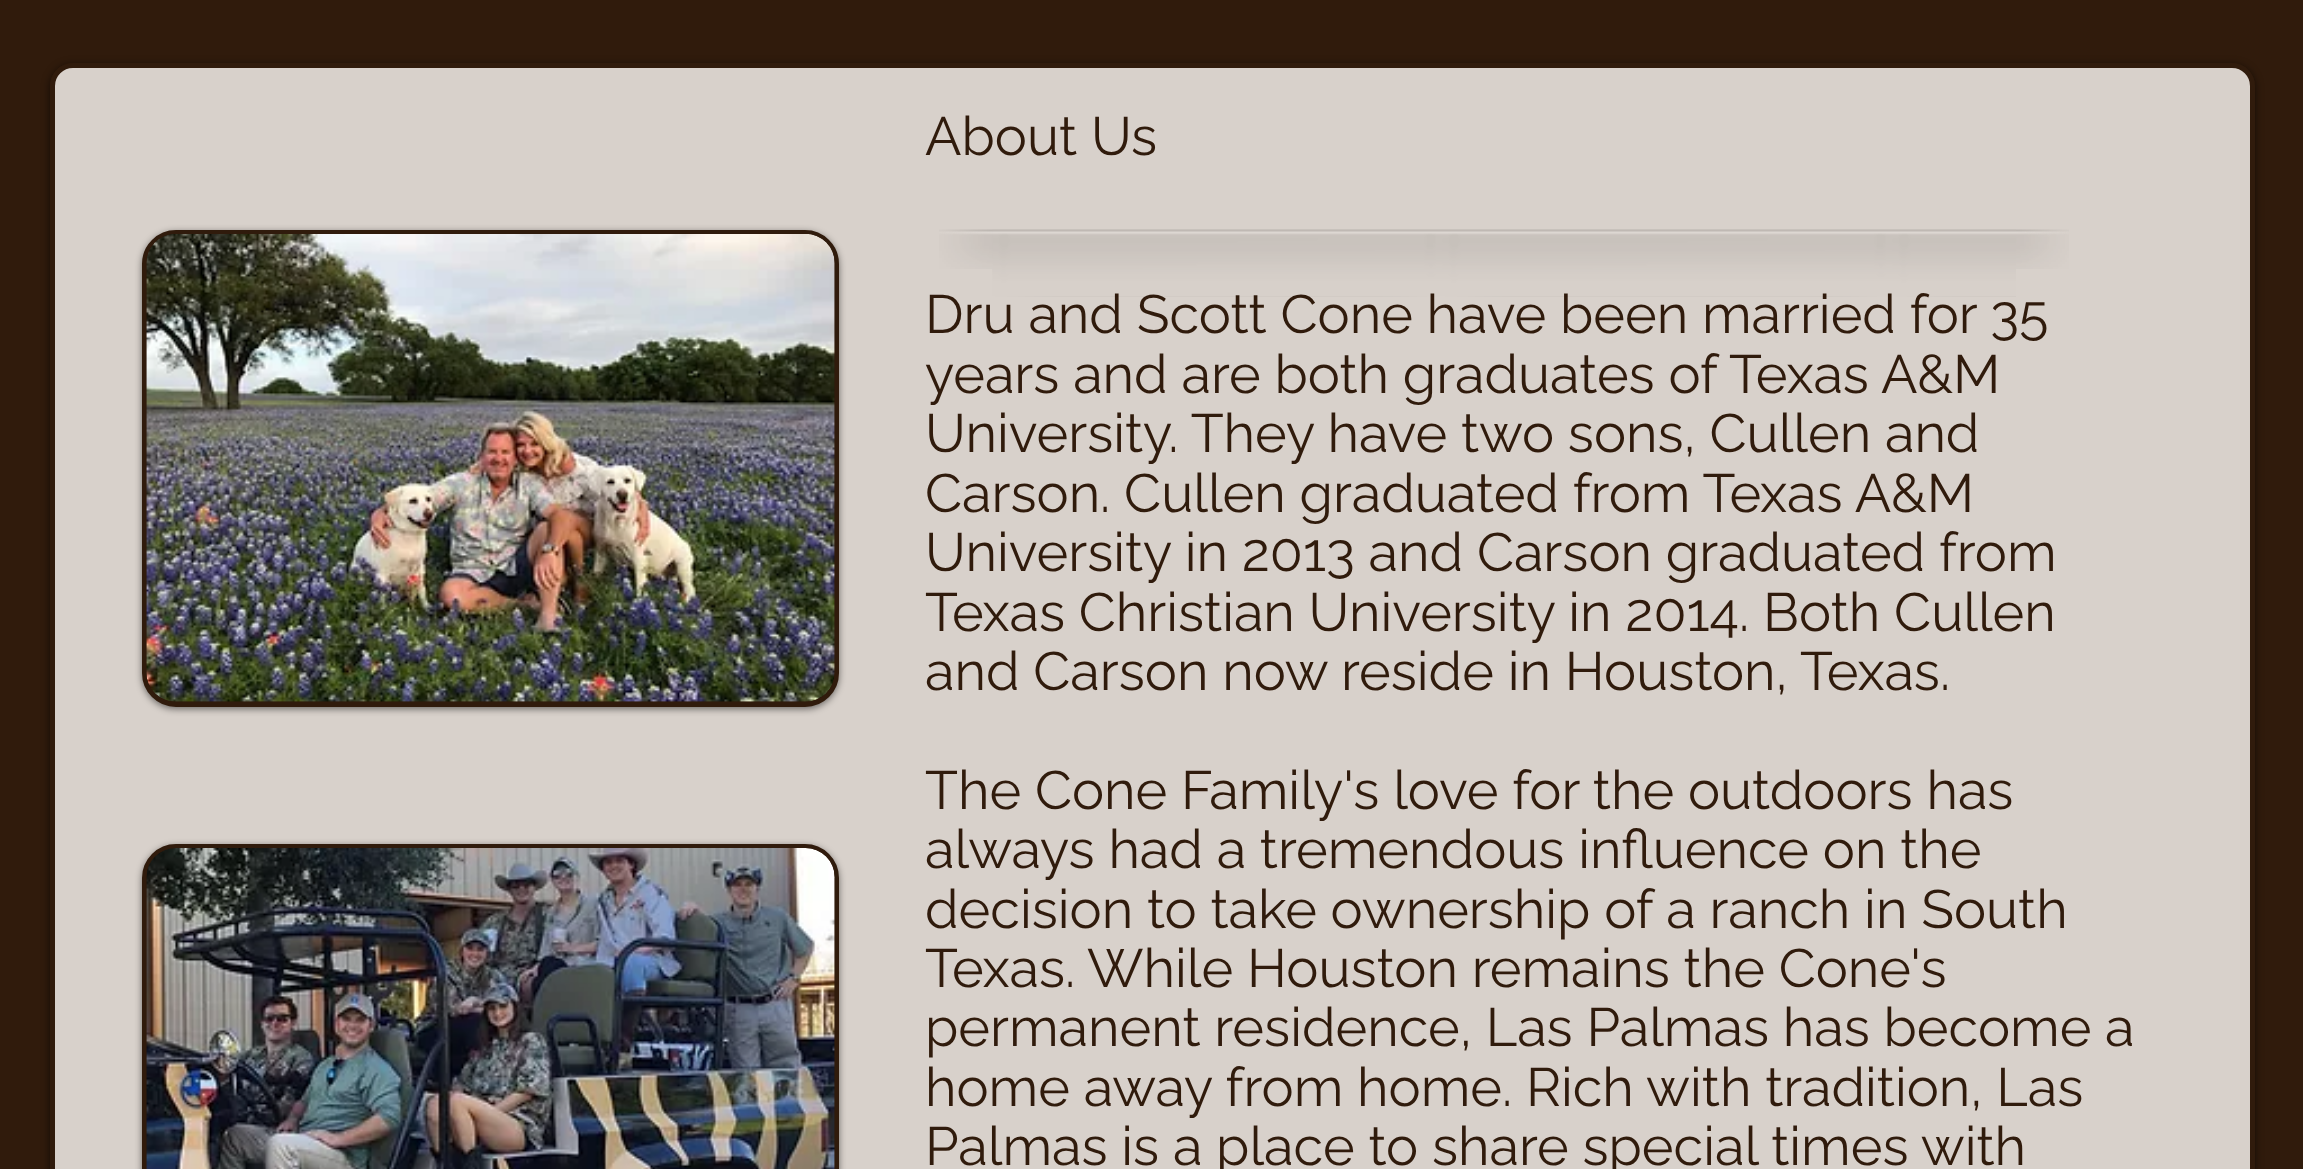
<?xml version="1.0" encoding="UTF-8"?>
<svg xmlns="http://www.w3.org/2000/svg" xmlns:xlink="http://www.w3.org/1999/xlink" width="2303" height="1169">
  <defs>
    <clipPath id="clip1"><path d="M 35 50 h 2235 v 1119 h -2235 z m 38 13 h 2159 c 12.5 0 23 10.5 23 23 v 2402 c 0 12.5 -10.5 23 -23 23 h -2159 c -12.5 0 -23 -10.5 -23 -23 v -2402 c 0 -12.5 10.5 -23 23 -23 z" clip-rule="evenodd" /></clipPath>
  </defs>
  <rect width="100%" height="100%" fill="#301b0c" />
  <g clip-path="url(#clip1)">
    <rect x="50" y="65" width="2205" height="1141" rx="23" fill="#000000" fill-opacity="0.6" filter="blur(4.5px)" />
  </g>
  <rect x="52.5" y="65.5" width="2200" height="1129" rx="20.5" fill="#fffbf8" fill-opacity="0.81" stroke="#301b0c" stroke-width="5" />
  <rect x="142" y="232" width="697" height="477" rx="34" fill="#000000" fill-opacity="0.5" filter="blur(3.5px)" />
  <rect x="144.5" y="232.5" width="692" height="472" rx="31.5" fill="#301b0c" stroke="#301b0c" stroke-width="5" />
  <image x="146" y="234" width="689" height="468" xlink:href="image1.png" />
  <image x="2016" y="229" width="53" height="40" xlink:href="image4.png" />
  <rect x="142" y="846" width="697" height="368" rx="34" fill="#000000" fill-opacity="0.5" filter="blur(3.5px)" />
  <rect x="144.5" y="846.5" width="692" height="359" rx="31.5" fill="none" stroke="#301b0c" stroke-width="5" />
  <image x="146" y="848" width="689" height="321" xlink:href="image5.png" />
  <text x="925" y="155" style="font-family: Raleway; font-size: 54px; fill: #301b0c">About Us</text>
  <text x="925" y="333" style="font-family: Raleway; font-size: 54px; fill: #301b0c">Dru and Scott Cone have been married for 35</text>
  <text x="925" y="393" style="font-family: Raleway; font-size: 54px; fill: #301b0c">years and are both graduates of Texas A&amp;M</text>
  <text x="925" y="452" style="font-family: Raleway; font-size: 54px; fill: #301b0c">University. They have two sons, Cullen and</text>
  <text x="925" y="512" style="font-family: Raleway; font-size: 54px; fill: #301b0c">Carson. Cullen graduated from Texas A&amp;M</text>
  <text x="925" y="571" style="font-family: Raleway; font-size: 54px; fill: #301b0c">University in 2013 and Carson graduated from</text>
  <text x="925" y="631" style="font-family: Raleway; font-size: 54px; fill: #301b0c">Texas Christian University in 2014. Both Cullen</text>
  <text x="925" y="690" style="font-family: Raleway; font-size: 54px; fill: #301b0c">and Carson now reside in Houston, Texas.</text>
  <text x="925" y="809" style="font-family: Raleway; font-size: 54px; fill: #301b0c">The Cone Family's love for the outdoors has</text>
  <text x="925" y="868" style="font-family: Raleway; font-size: 54px; fill: #301b0c">always had a tremendous influence on the</text>
  <text x="925" y="928" style="font-family: Raleway; font-size: 54px; fill: #301b0c">decision to take ownership of a ranch in South</text>
  <text x="925" y="987" style="font-family: Raleway; font-size: 54px; fill: #301b0c">Texas. While Houston remains the Cone's</text>
  <text x="925" y="1046" style="font-family: Raleway; font-size: 54px; fill: #301b0c">permanent residence, Las Palmas has become a</text>
  <text x="925" y="1106" style="font-family: Raleway; font-size: 54px; fill: #301b0c">home away from home. Rich with tradition, Las</text>
  <text x="925" y="1165" style="font-family: Raleway; font-size: 54px; fill: #301b0c">Palmas is a place to share special times with</text>
  <image x="992" y="229" width="1024" height="68" xlink:href="image3.png" />
  <image x="939" y="229" width="54" height="40" xlink:href="image2.png" />
</svg>
